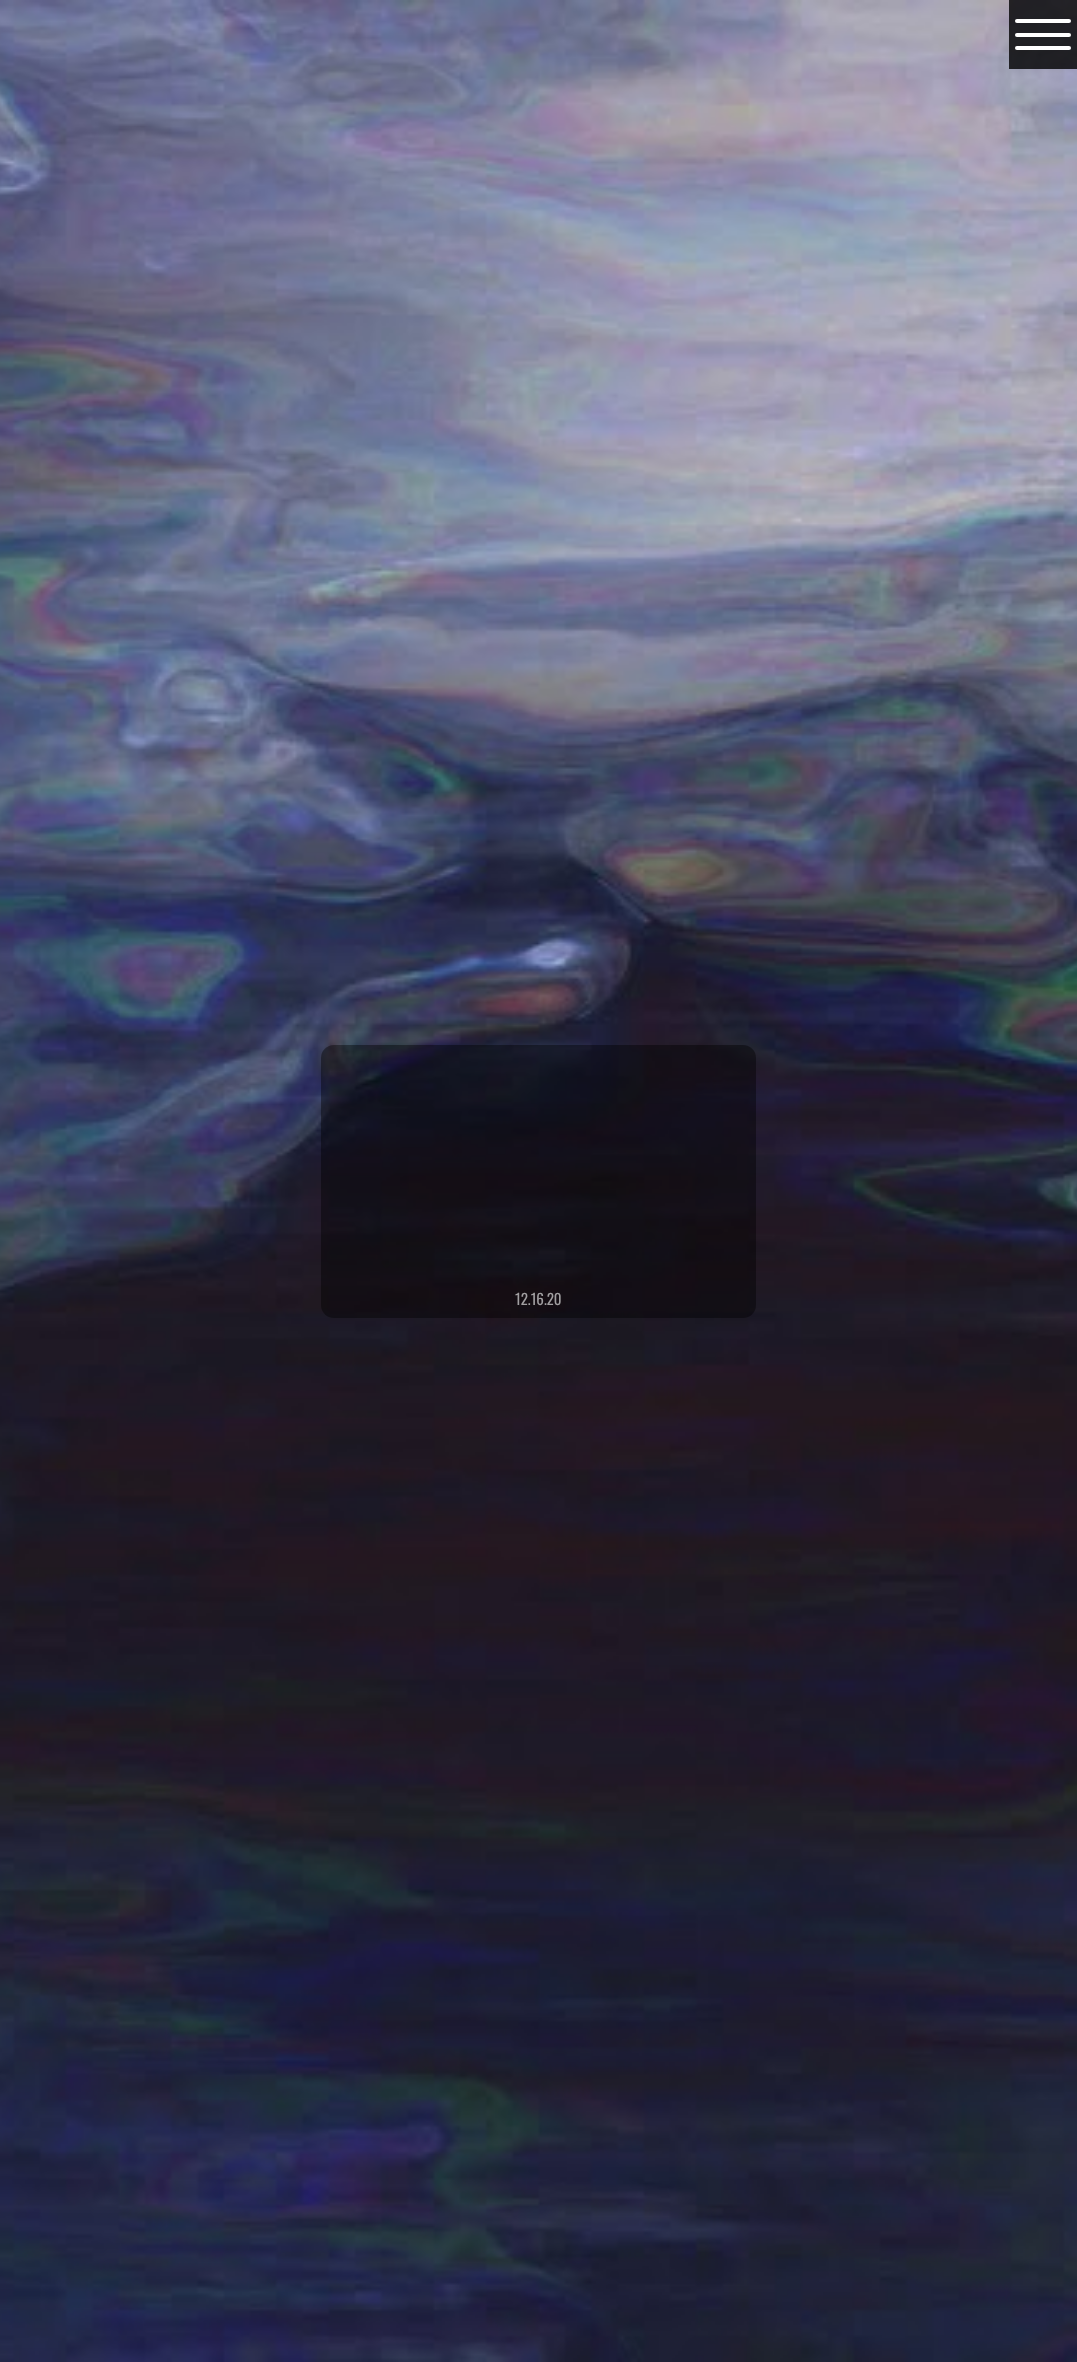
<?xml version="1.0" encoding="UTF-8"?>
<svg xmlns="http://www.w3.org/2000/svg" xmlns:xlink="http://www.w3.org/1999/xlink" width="1077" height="2362">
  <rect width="100%" height="100%" fill="#ffffff" />
  <image x="0" y="0" width="1077" height="2362" xlink:href="image1.png" />
  <rect x="1009" width="68" height="69" fill="#000000" fill-opacity="0.8" />
  <rect x="1015" y="19" width="56" height="4" rx="2" fill="#ffffff" />
  <rect x="1015" y="33" width="56" height="4" rx="2" fill="#ffffff" />
  <rect x="1015" y="46" width="56" height="4" rx="2" fill="#ffffff" />
  <rect x="321" y="1045" width="435" height="273" rx="13" fill="#000000" fill-opacity="0.4" />
  <text x="515" y="1305" style="font-family: Oswald; font-size: 15px; fill: #a19fa1">12.16.20</text>
</svg>
